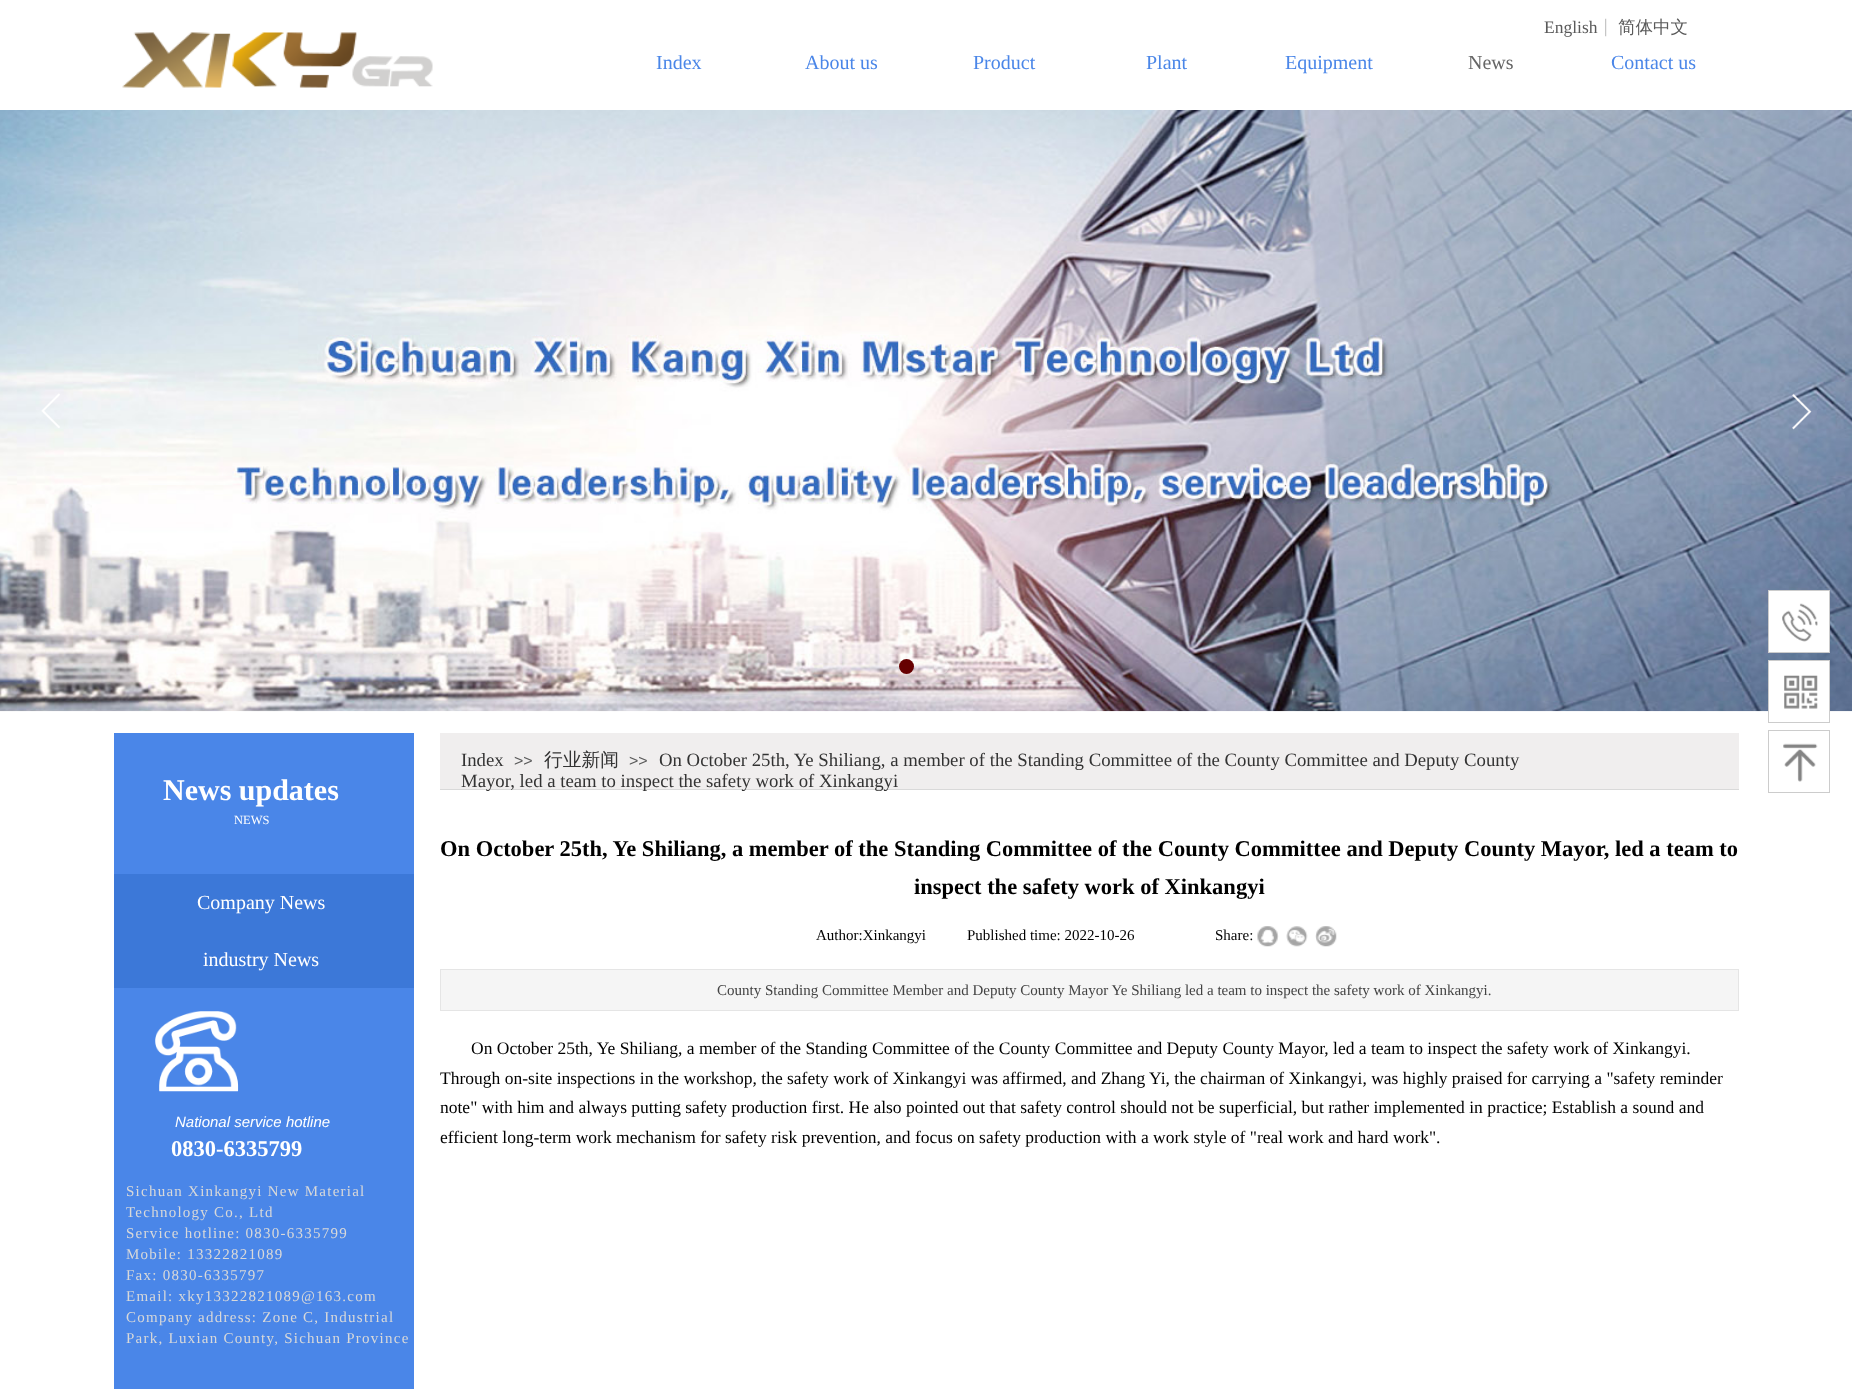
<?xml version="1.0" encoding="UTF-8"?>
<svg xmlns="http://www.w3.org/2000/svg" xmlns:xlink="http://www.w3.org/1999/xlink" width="1852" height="1389">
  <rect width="100%" height="100%" fill="#ffffff" />
  <image x="1605" y="18" width="2" height="19" xlink:href="image1.png" />
  <image x="122" y="32" width="311" height="56" xlink:href="image2.png" />
  <image x="0" y="110" width="1852" height="602" xlink:href="image3.png" />
  <image x="41" y="393" width="19" height="35" xlink:href="image4.png" />
  <image x="1792" y="393" width="20" height="37" xlink:href="image5.png" />
  <circle cx="906.5" cy="666.5" r="7.5" fill="#660000" />
  <circle cx="941.5" cy="666.5" r="7.5" fill="#ffffff" fill-opacity="0.4" />
  <rect x="440" y="733" width="1299" height="56" fill="#f0eeee" />
  <rect x="440" y="789" width="1299" height="1" fill="#d9d9d9" />
  <rect x="114" y="733" width="300" height="656" fill="#4a86e8" />
  <rect x="114" y="874" width="300" height="114" fill="#3c78d8" />
  <image x="155" y="1011" width="84" height="81" xlink:href="image6.png" />
  <image x="1257" y="926" width="22" height="21" xlink:href="image7.png" />
  <image x="1286" y="926" width="22" height="21" xlink:href="image8.png" />
  <image x="1315" y="926" width="22" height="21" xlink:href="image9.png" />
  <rect x="440.5" y="969.5" width="1298" height="41" fill="#f5f5f5" stroke="#e5e5e5" />
  <rect x="1768.5" y="590.5" width="61" height="62" fill="#ffffff" stroke="#cccccc" />
  <image x="1782" y="603" width="36" height="39" xlink:href="image10.png" />
  <rect x="1769" y="661" width="60" height="51" fill="#ffffff" />
  <rect x="1768.5" y="660.5" width="61" height="62" fill="none" stroke="#cccccc" />
  <image x="1784" y="675" width="34" height="34" xlink:href="image11.png" />
  <rect x="1768.5" y="730.5" width="61" height="62" fill="none" stroke="#cccccc" />
  <image x="1783" y="743" width="35" height="39" xlink:href="image12.png" />
  <text x="1544" y="33" style="font-family: Liberation Serif; font-size: 17.5px; fill: #5a5a5a">English</text>
  <text x="1618" y="33" style="font-family: WenQuanYi Zen Hei; font-size: 17.5px; font-weight: 500; fill: #5a5a5a">简体中文</text>
  <text x="656" y="69" style="font-family: Liberation Serif; font-size: 20px; fill: #4a86e8">Index</text>
  <text x="805" y="69" style="font-family: Liberation Serif; font-size: 20px; fill: #4a86e8">About us</text>
  <text x="973" y="69" style="font-family: Liberation Serif; font-size: 20px; fill: #4a86e8">Product</text>
  <text x="1146" y="69" style="font-family: Liberation Serif; font-size: 20px; fill: #4a86e8">Plant</text>
  <text x="1285" y="69" style="font-family: Liberation Serif; font-size: 20px; fill: #4a86e8">Equipment</text>
  <text x="1468" y="69" style="font-family: Liberation Serif; font-size: 20px; fill: #666666">News</text>
  <text x="1611" y="69" style="font-family: Liberation Serif; font-size: 20px; fill: #4a86e8">Contact us</text>
  <text x="461" y="766" style="font-family: Liberation Serif; font-size: 18.75px; fill: #333333">Index</text>
  <text x="514" y="766" style="font-family: Liberation Sans; font-size: 16px; fill: #5a5a5a">&gt;&gt;</text>
  <text x="544" y="766" style="font-family: WenQuanYi Zen Hei; font-size: 18.75px; font-weight: 500; fill: #333333">行业新闻</text>
  <text x="629" y="766" style="font-family: Liberation Sans; font-size: 16px; fill: #5a5a5a">&gt;&gt;</text>
  <text x="659" y="766" style="font-family: Liberation Serif; font-size: 18.75px; fill: #333333">On October 25th, Ye Shiliang, a member of the Standing Committee of the County Committee and Deputy County</text>
  <text x="461" y="787" style="font-family: Liberation Serif; font-size: 18.75px; fill: #333333">Mayor, led a team to inspect the safety work of Xinkangyi</text>
  <text x="163" y="800" style="font-family: Liberation Serif; font-size: 30px; font-weight: bold; fill: #ffffff">News updates</text>
  <text x="234" y="824" style="font-family: Liberation Serif; font-size: 12.5px; fill: #ffffff">NEWS</text>
  <text x="197" y="909" style="font-family: Liberation Serif; font-size: 20px; fill: #ffffff">Company News</text>
  <text x="203" y="966" style="font-family: Liberation Serif; font-size: 20px; fill: #ffffff">industry News</text>
  <text x="175" y="1127" style="font-family: Liberation Sans; font-size: 15px; font-style: italic; fill: #ffffff">National service hotline</text>
  <text x="171" y="1156" style="font-family: Liberation Serif; font-size: 22.5px; font-weight: bold; fill: #ffffff">0830-6335799</text>
  <text x="126" y="1196" style="font-family: Liberation Serif; font-size: 15px; letter-spacing: 1.25px; fill: #d9d9d9">Sichuan Xinkangyi New Material</text>
  <text x="126" y="1217" style="font-family: Liberation Serif; font-size: 15px; letter-spacing: 1.25px; fill: #d9d9d9">Technology Co., Ltd</text>
  <text x="126" y="1238" style="font-family: Liberation Serif; font-size: 15px; letter-spacing: 1.25px; fill: #d9d9d9">Service hotline: 0830-6335799</text>
  <text x="126" y="1259" style="font-family: Liberation Serif; font-size: 15px; letter-spacing: 1.25px; fill: #d9d9d9">Mobile: 13322821089</text>
  <text x="126" y="1280" style="font-family: Liberation Serif; font-size: 15px; letter-spacing: 1.25px; fill: #d9d9d9">Fax: 0830-6335797</text>
  <text x="126" y="1301" style="font-family: Liberation Serif; font-size: 15px; letter-spacing: 1.25px; fill: #d9d9d9">Email: xky13322821089@163.com</text>
  <text x="126" y="1322" style="font-family: Liberation Serif; font-size: 15px; letter-spacing: 1.25px; fill: #d9d9d9">Company address: Zone C, Industrial</text>
  <text x="126" y="1343" style="font-family: Liberation Serif; font-size: 15px; letter-spacing: 1.25px; fill: #d9d9d9">Park, Luxian County, Sichuan Province</text>
  <text x="440" y="856" style="font-family: Liberation Serif; font-size: 22.5px; font-weight: bold; fill: #000000">On October 25th, Ye Shiliang, a member of the Standing Committee of the County Committee and Deputy County Mayor, led a team to</text>
  <text x="914" y="894" style="font-family: Liberation Serif; font-size: 22.5px; font-weight: bold; fill: #000000">inspect the safety work of Xinkangyi</text>
  <text x="816" y="940" style="font-family: Liberation Serif; font-size: 15px; fill: #000000">Author:Xinkangyi</text>
  <text x="967" y="940" style="font-family: Liberation Serif; font-size: 15px; fill: #000000">Published time: 2022-10-26</text>
  <text x="1215" y="940" style="font-family: Liberation Serif; font-size: 15px; fill: #000000">Share:</text>
  <text x="717" y="995" style="font-family: Liberation Serif; font-size: 15px; fill: #434343">County Standing Committee Member and Deputy County Mayor Ye Shiliang led a team to inspect the safety work of Xinkangyi.</text>
  <text x="471" y="1054" style="font-family: Liberation Serif; font-size: 17.5px; fill: #000000">On October 25th, Ye Shiliang, a member of the Standing Committee of the County Committee and Deputy County Mayor, led a team to inspect the safety work of Xinkangyi.</text>
  <text x="440" y="1084" style="font-family: Liberation Serif; font-size: 17.5px; fill: #000000">Through on-site inspections in the workshop, the safety work of Xinkangyi was affirmed, and Zhang Yi, the chairman of Xinkangyi, was highly praised for carrying a "safety reminder</text>
  <text x="440" y="1113" style="font-family: Liberation Serif; font-size: 17.5px; fill: #000000">note" with him and always putting safety production first. He also pointed out that safety control should not be superficial, but rather implemented in practice; Establish a sound and</text>
  <text x="440" y="1143" style="font-family: Liberation Serif; font-size: 17.5px; fill: #000000">efficient long-term work mechanism for safety risk prevention, and focus on safety production with a work style of "real work and hard work".</text>
</svg>
